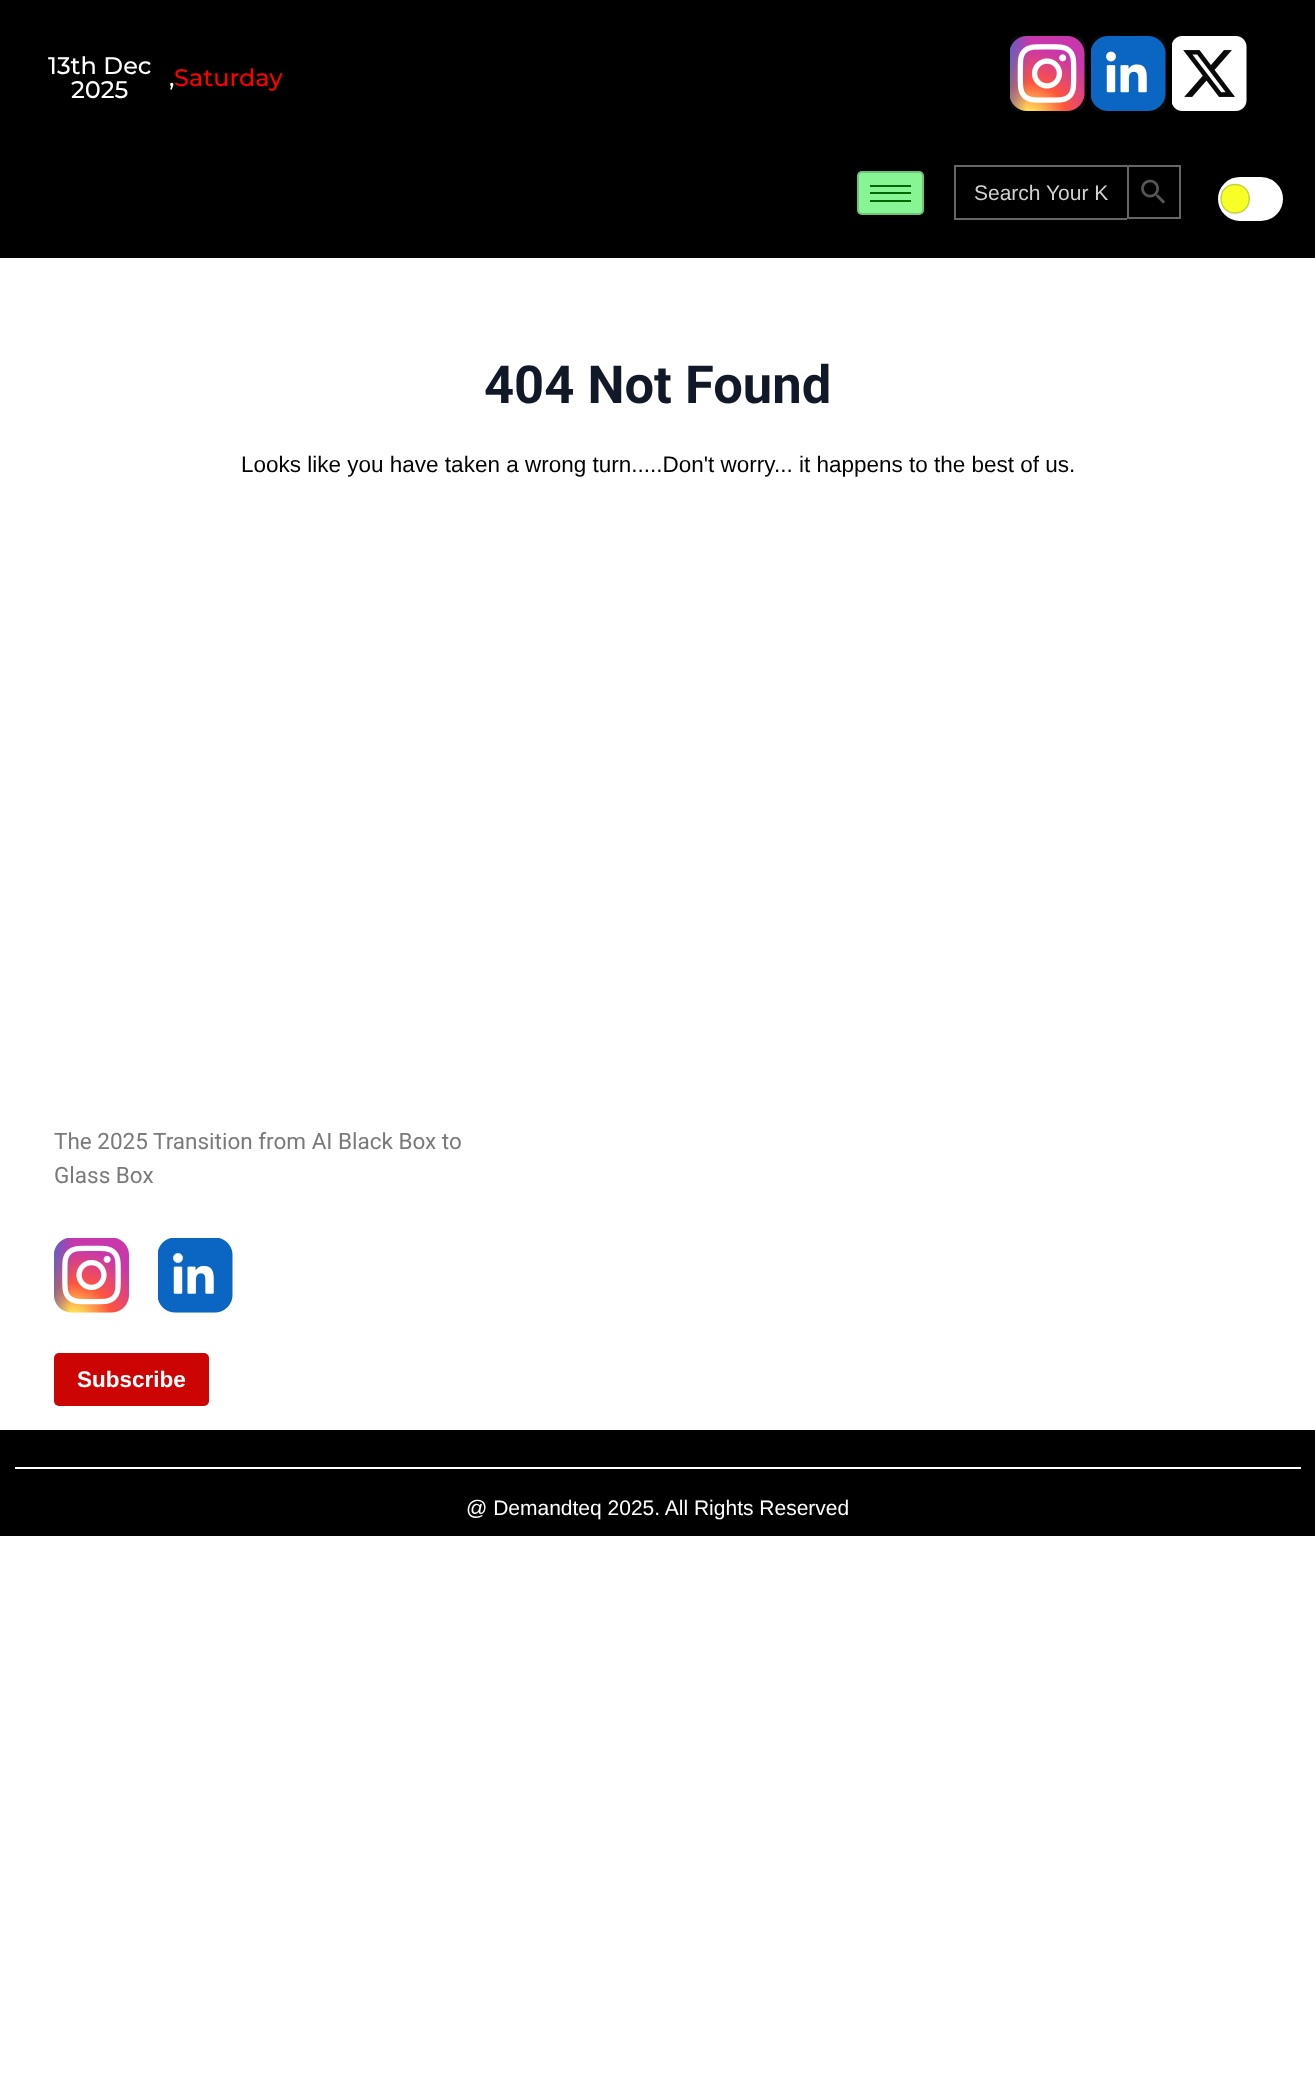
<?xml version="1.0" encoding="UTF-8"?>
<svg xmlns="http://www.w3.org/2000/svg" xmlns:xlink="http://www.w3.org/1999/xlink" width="1315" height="2084">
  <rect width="100%" height="100%" fill="#ffffff" />
  <rect width="1315" height="258" fill="#000000" />
  <rect x="1010" y="36" width="75" height="75" rx="8" fill="#0b0b0b" />
  <image x="1010" y="36" width="75" height="75" xlink:href="image1.png" />
  <rect x="1091" y="36" width="75" height="75" rx="8" fill="#080808" />
  <image x="1091" y="36" width="75" height="75" xlink:href="image2.png" />
  <rect x="1172" y="36" width="75" height="75" rx="8" fill="#090909" />
  <image x="1172" y="36" width="75" height="75" xlink:href="image3.png" />
  <rect x="857" y="171" width="67" height="44" rx="5" fill="#87f593" />
  <rect x="858" y="172" width="65" height="42" rx="4" fill="none" stroke="#000000" stroke-opacity="0.2" stroke-width="2" />
  <rect x="870" y="185" width="41" height="2" fill="#006705" />
  <rect x="870" y="192" width="41" height="2" fill="#006705" />
  <rect x="870" y="200" width="41" height="2" fill="#006705" />
  <rect x="954" y="165" width="173" height="2" fill="#666666" />
  <rect x="954" y="218" width="173" height="2" fill="#666666" />
  <rect x="954" y="165" width="2" height="54" fill="#666666" />
  <rect x="1128" y="166" width="52" height="52" fill="none" stroke="#666666" stroke-width="2" />
  <image x="1141" y="179" width="24" height="25" xlink:href="image4.png" />
  <rect x="1219" y="178" width="63" height="42" rx="21" fill="#ffffff" stroke="#ffffff" stroke-width="2" />
  <path d="M 1235 213 c 19 0 19 -28.5 0 -28.5 c -18.5 0 -18.5 28.5 0 28.5 z" fill="#f8ff24" stroke="#c6d148" stroke-width="1.5" stroke-linecap="round" stroke-linejoin="round" />
  <image x="54" y="1238" width="75" height="75" xlink:href="image5.png" />
  <image x="158" y="1238" width="75" height="75" xlink:href="image6.png" />
  <rect x="54" y="1353" width="155" height="53" rx="5" fill="#cc0404" />
  <rect y="1430" width="1315" height="106" fill="#000000" />
  <rect x="15" y="1467" width="1286" height="2" fill="#ffffff" />
  <text x="48" y="74" style="font-family: Montserrat; font-size: 24px; font-weight: 100; fill: #ffffff">13th Dec</text>
  <text x="71" y="98" style="font-family: Montserrat; font-size: 24px; font-weight: 100; fill: #ffffff">2025</text>
  <text x="169" y="86" style="font-family: Montserrat; font-size: 24px; font-weight: 100; fill: #ffffff">,</text>
  <text x="174" y="86" style="font-family: Montserrat; font-size: 24px; font-weight: 100; fill: #ff0000">Saturday</text>
  <text x="974" y="200" style="font-family: Liberation Sans; font-size: 21px; fill: #d1d1d1">Search Your K</text>
  <text x="484" y="403" style="font-family: Roboto; font-size: 52.5px; font-weight: bold; fill: #111827">404 Not Found</text>
  <text x="241" y="472" style="font-family: Liberation Sans; font-size: 22.5px; fill: #000000">Looks like you have taken a wrong turn.....Don't worry... it happens to the best of us.</text>
  <text x="54" y="1149" style="font-family: Roboto; font-size: 22.5px; fill: #7a7a7a">The 2025 Transition from AI Black Box to</text>
  <text x="54" y="1183" style="font-family: Roboto; font-size: 22.5px; fill: #7a7a7a">Glass Box</text>
  <text x="77" y="1387" style="font-family: Liberation Sans; font-size: 22.5px; font-weight: bold; fill: #ffffff">Subscribe</text>
  <text x="466" y="1515" style="font-family: Liberation Sans; font-size: 21px; fill: #ffffff">@ Demandteq 2025. All Rights Reserved</text>
</svg>
